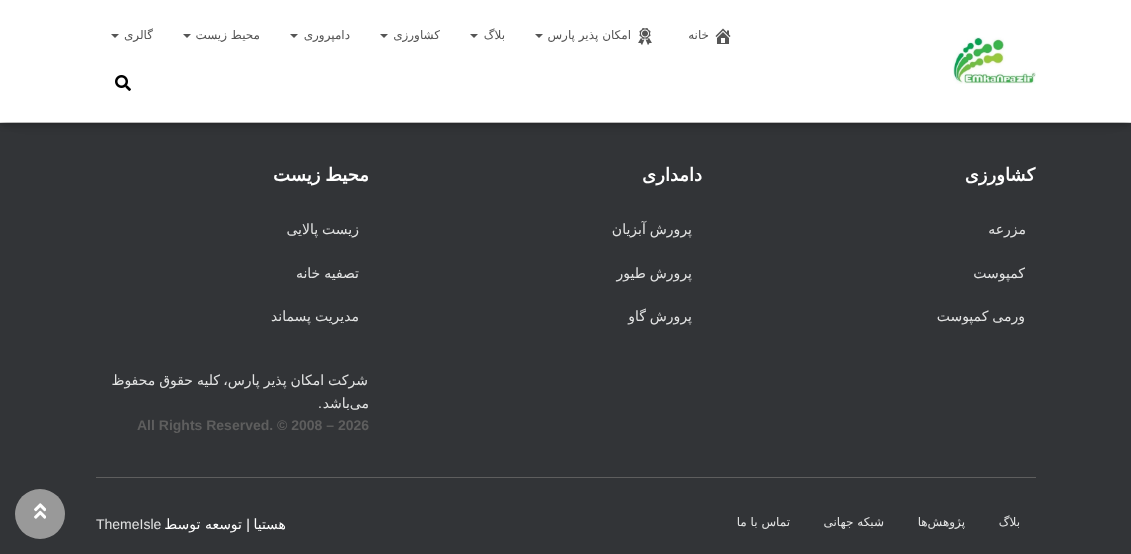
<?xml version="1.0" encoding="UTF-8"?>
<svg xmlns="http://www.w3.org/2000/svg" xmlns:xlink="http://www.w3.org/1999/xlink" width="1131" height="554">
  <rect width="100%" height="100%" fill="#e5e5e5" />
  <rect y="123" width="1131" height="431" fill="#323437" />
  <rect x="13" y="-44" width="1105" height="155" rx="8" fill="#000000" fill-opacity="0.14" filter="blur(12px)" />
  <rect x="2" y="6" width="1127" height="118" fill="#000000" fill-opacity="0.1" filter="blur(2.5px)" />
  <rect y="1" width="1131" height="122" fill="#000000" fill-opacity="0.12" filter="blur(5px)" />
  <rect x="6" y="7" width="1119" height="110" fill="#000000" fill-opacity="0.42" filter="blur(5px)" />
  <rect width="1131" height="122" fill="#ffffff" />
  <image x="715" y="28" width="16" height="16" xlink:href="image1.png" />
  <image x="638" y="28" width="14" height="17" xlink:href="image2.png" />
  <path d="M 535 34 h 8 l -4 4 z" fill="#555555" />
  <path d="M 470 34 h 8 l -4 4 z" fill="#555555" />
  <path d="M 380 34 h 8 l -4 4 z" fill="#555555" />
  <path d="M 290 34 h 8 l -4 4 z" fill="#555555" />
  <path d="M 183 34 h 8 l -4 4 z" fill="#555555" />
  <path d="M 111 34 h 8 l -4 4 z" fill="#555555" />
  <image x="115" y="75" width="16" height="16" xlink:href="image3.png" />
  <image x="953" y="37" width="83" height="47" xlink:href="image4.png" />
  <rect x="96" y="477" width="940" height="1" fill="#5e5e5e" />
  <circle cx="40" cy="514" r="25" fill="#999999" />
  <image x="34" y="503" width="12" height="16" xlink:href="image5.png" />
  <text x="709" y="39" style="font-family: DejaVu Sans; font-size: 12px; direction: rtl; fill: #555555">خانه</text>
  <text x="631" y="39" style="font-family: DejaVu Sans; font-size: 12px; direction: rtl; fill: #555555">امکان پذیر پارس</text>
  <text x="505" y="39" style="font-family: DejaVu Sans; font-size: 12px; direction: rtl; fill: #555555">بلاگ</text>
  <text x="440" y="39" style="font-family: DejaVu Sans; font-size: 12px; direction: rtl; fill: #555555">کشاورزی</text>
  <text x="350" y="39" style="font-family: DejaVu Sans; font-size: 12px; direction: rtl; fill: #555555">دامپروری</text>
  <text x="260" y="39" style="font-family: DejaVu Sans; font-size: 12px; direction: rtl; fill: #555555">محیط زیست</text>
  <text x="153" y="39" style="font-family: DejaVu Sans; font-size: 12px; direction: rtl; fill: #555555">گالری</text>
  <text x="1035" y="181" style="font-family: DejaVu Sans; font-size: 18px; font-weight: bold; direction: rtl; fill: #ffffff">کشاورزی</text>
  <text x="1026" y="234" style="font-family: DejaVu Sans; font-size: 14px; direction: rtl; fill: #e2e3e3">مزرعه</text>
  <text x="1025" y="278" style="font-family: DejaVu Sans; font-size: 14px; direction: rtl; fill: #e2e3e3">کمپوست</text>
  <text x="1025" y="321" word-spacing="-0.5" style="font-family: DejaVu Sans; font-size: 14px; direction: rtl; fill: #e2e3e3">ورمی کمپوست</text>
  <text x="702" y="181" style="font-family: DejaVu Sans; font-size: 18px; font-weight: bold; direction: rtl; fill: #ffffff">دامداری</text>
  <text x="692" y="234" word-spacing="-0.5" style="font-family: DejaVu Sans; font-size: 14px; direction: rtl; fill: #e2e3e3">پرورش آبزیان</text>
  <text x="692" y="278" word-spacing="-0.5" style="font-family: DejaVu Sans; font-size: 14px; direction: rtl; fill: #e2e3e3">پرورش طیور</text>
  <text x="692" y="321" word-spacing="-0.5" style="font-family: DejaVu Sans; font-size: 14px; direction: rtl; fill: #e2e3e3">پرورش گاو</text>
  <text x="369" y="181" word-spacing="-1" style="font-family: DejaVu Sans; font-size: 18px; font-weight: bold; direction: rtl; fill: #ffffff">محیط زیست</text>
  <text x="359" y="234" word-spacing="-0.5" style="font-family: DejaVu Sans; font-size: 14px; direction: rtl; fill: #e2e3e3">زیست پالایی</text>
  <text x="359" y="278" word-spacing="-0.5" style="font-family: DejaVu Sans; font-size: 14px; direction: rtl; fill: #e2e3e3">تصفیه خانه</text>
  <text x="359" y="321" word-spacing="-0.5" style="font-family: DejaVu Sans; font-size: 14px; direction: rtl; fill: #e2e3e3">مدیریت پسماند</text>
  <text x="368" y="385" word-spacing="-0.5" style="font-family: DejaVu Sans; font-size: 14px; direction: rtl; fill: #e2e3e3">شرکت امکان پذیر پارس،</text>
  <text x="220" y="385" word-spacing="-0.5" style="font-family: DejaVu Sans; font-size: 14px; direction: rtl; fill: #e2e3e3">کلیه حقوق محفوظ</text>
  <text x="369" y="408" style="font-family: DejaVu Sans; font-size: 14px; direction: rtl; fill: #e2e3e3">می</text>
  <text x="350" y="408" style="font-family: DejaVu Sans; font-size: 14px; direction: rtl; fill: #e2e3e3">باشد</text>
  <text x="322" y="408" style="font-family: Liberation Sans; font-size: 14px; direction: rtl; fill: #e2e3e3">.</text>
  <text x="137" y="430" style="font-family: Liberation Sans; font-size: 14px; font-weight: bold; fill: #5e5e5e">All Rights Reserved. © 2008 – 2026</text>
  <text x="1020" y="526" style="font-family: DejaVu Sans; font-size: 12px; direction: rtl; fill: #e2e3e3">بلاگ</text>
  <text x="965" y="526" style="font-family: DejaVu Sans; font-size: 12px; direction: rtl; fill: #e2e3e3">پژوهش‌ها</text>
  <text x="884" y="526" style="font-family: DejaVu Sans; font-size: 12px; direction: rtl; fill: #e2e3e3">شبکه جهانی</text>
  <text x="790" y="526" style="font-family: DejaVu Sans; font-size: 12px; direction: rtl; fill: #e2e3e3">تماس با ما</text>
  <text x="286" y="529" style="font-family: DejaVu Sans; font-size: 14px; direction: rtl; fill: #ffffff">هستیا</text>
  <text x="250" y="529" style="font-family: Liberation Sans; font-size: 14px; direction: rtl; fill: #ffffff">|</text>
  <text x="242" y="529" style="font-family: DejaVu Sans; font-size: 14px; direction: rtl; fill: #ffffff">توسعه توسط</text>
  <text x="96" y="529" style="font-family: Liberation Sans; font-size: 14px; fill: #e2e3e3">ThemeIsle</text>
</svg>
